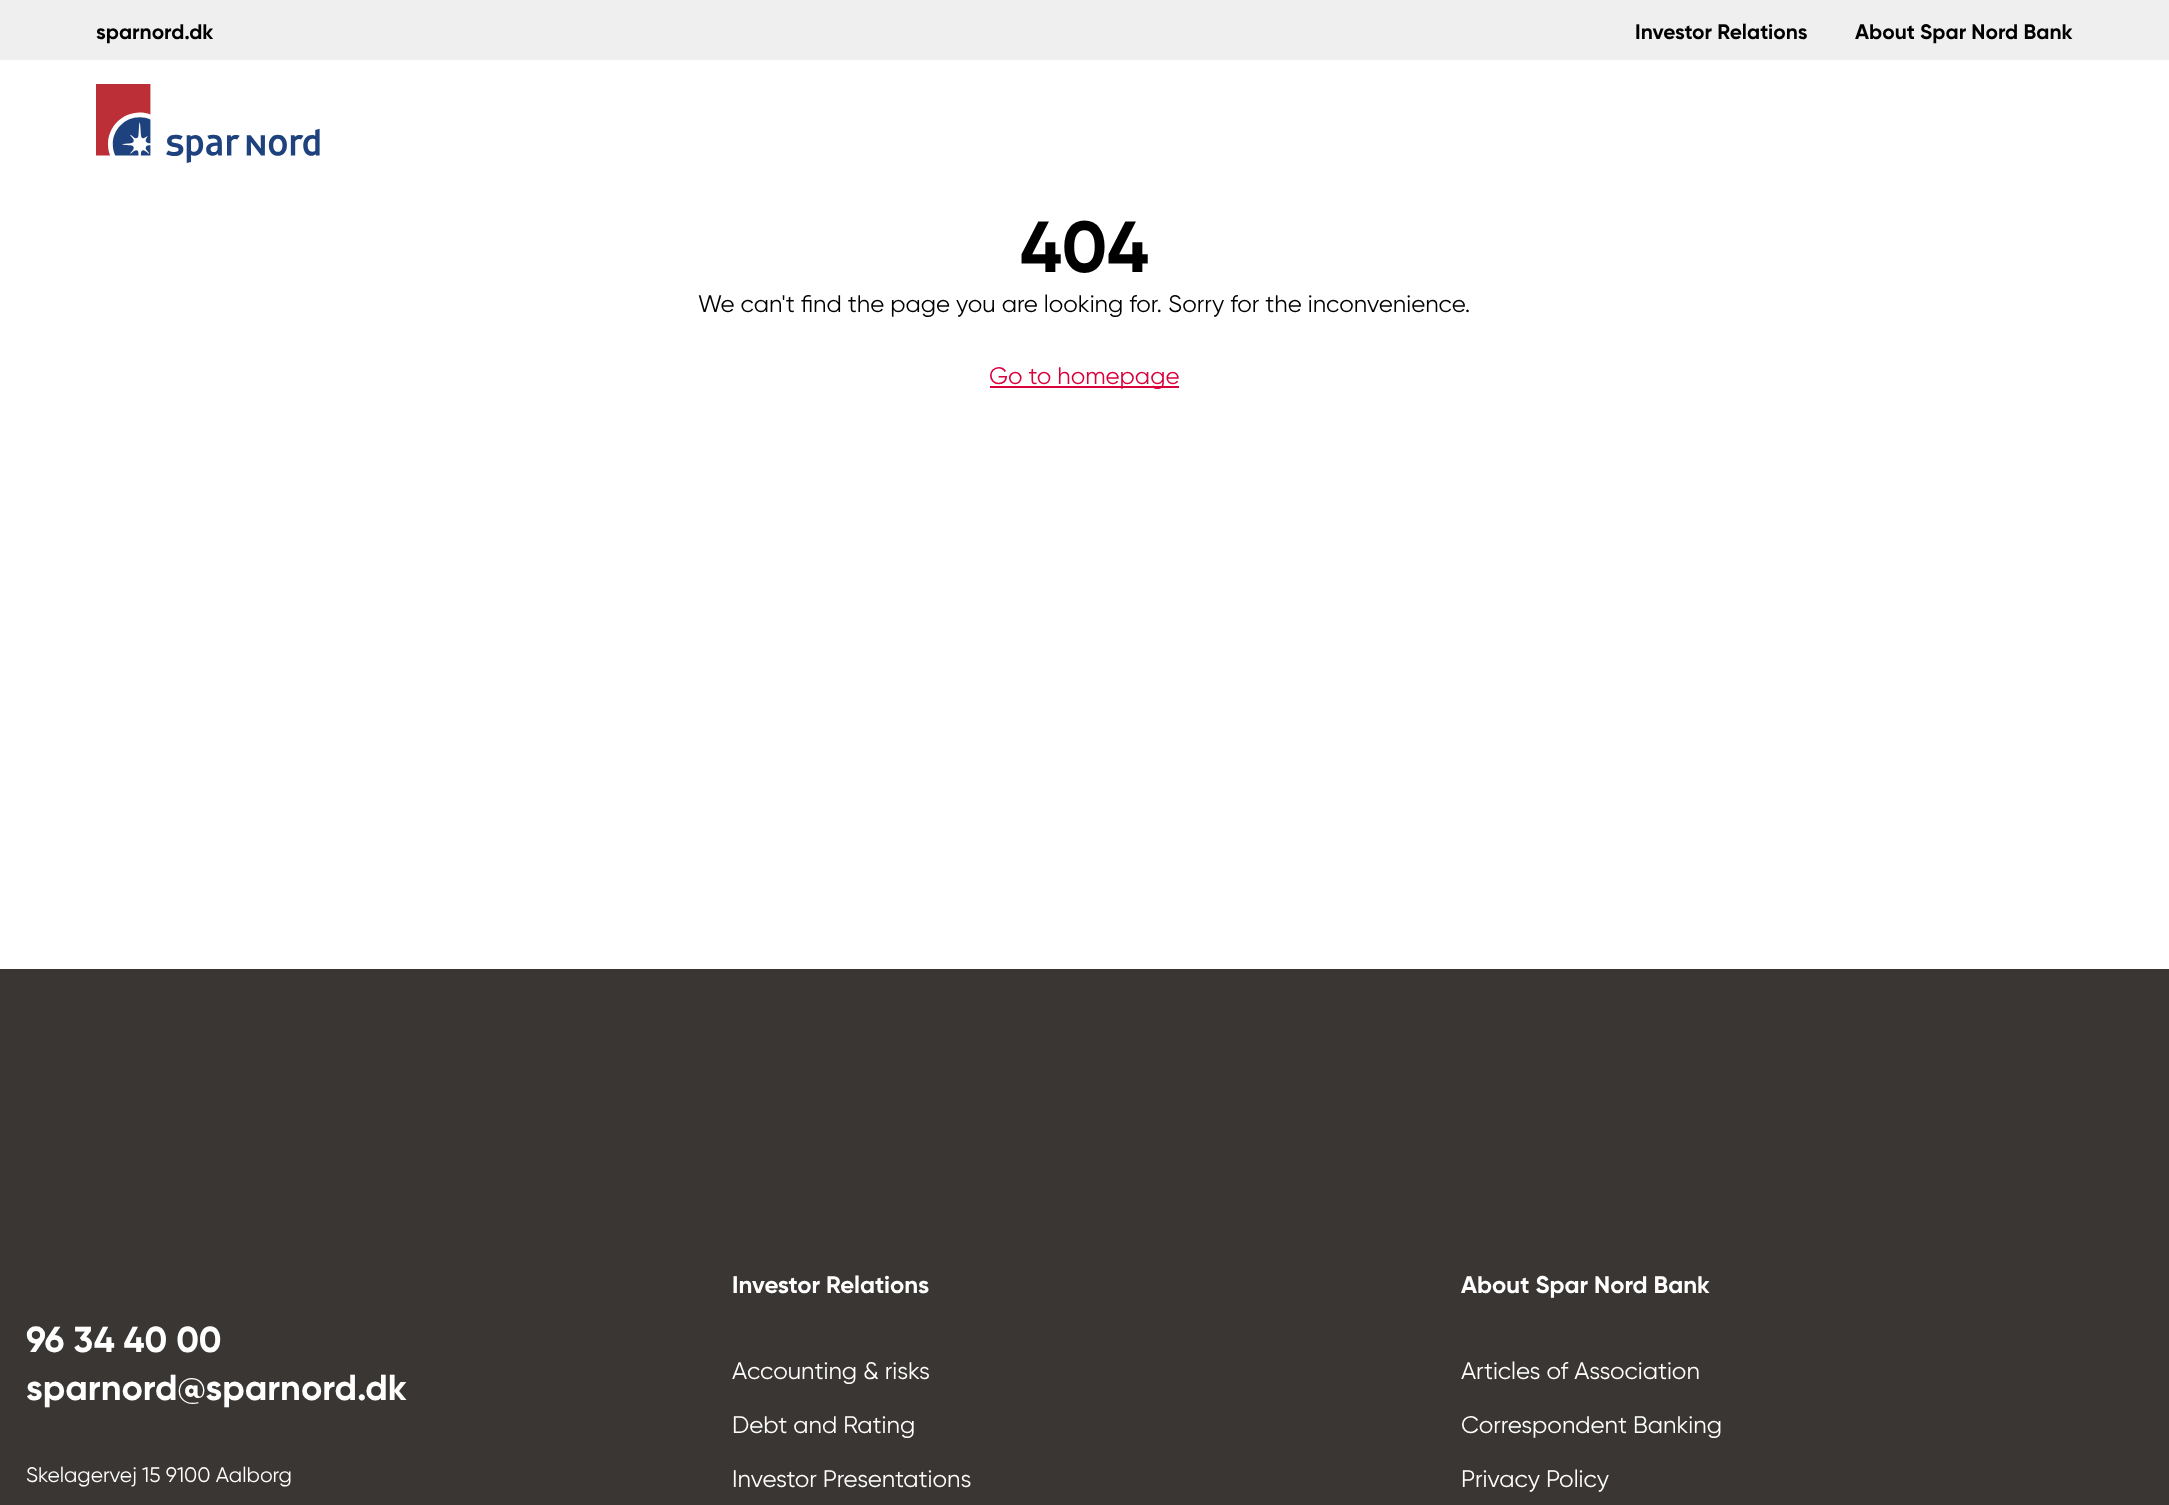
<?xml version="1.0" encoding="UTF-8"?>
<svg xmlns="http://www.w3.org/2000/svg" xmlns:xlink="http://www.w3.org/1999/xlink" width="2169" height="1505">
  <rect width="100%" height="100%" fill="#ffffff" />
  <rect width="2169" height="60" fill="#f0efef" />
  <image x="96" y="84" width="224" height="79" xlink:href="image1.png" />
  <rect x="990" y="386" width="189" height="2" fill="#d9003c" />
  <rect y="969" width="2169" height="536" fill="#393634" />
  <text x="96" y="39" style="font-family: Gilroy; font-size: 21px; font-weight: bold; fill: #000000">sparnord.dk</text>
  <text x="1635" y="39" style="font-family: Gilroy; font-size: 21px; font-weight: bold; fill: #000000">Investor Relations</text>
  <text x="1855" y="39" style="font-family: Gilroy; font-size: 21px; font-weight: bold; fill: #000000">About Spar Nord Bank</text>
  <text x="1020" y="272" style="font-family: Gilroy; font-size: 72px; font-weight: bold; fill: #000000">404</text>
  <text x="698" y="312" style="font-family: Gilroy; font-size: 24px; fill: #000000">We can't find the page you are looking for. Sorry for the inconvenience.</text>
  <text x="989" y="384" style="font-family: Gilroy; font-size: 24px; fill: #d9003c">Go to homepage</text>
  <text x="26" y="1352" style="font-family: Gilroy; font-size: 36px; font-weight: bold; fill: #ffffff">96 34 40 00</text>
  <text x="26" y="1400" style="font-family: Gilroy; font-size: 36px; font-weight: bold; fill: #ffffff">sparnord@sparnord.dk</text>
  <text x="26" y="1482" style="font-family: Gilroy; font-size: 21px; fill: #ffffff">Skelagervej 15 9100 Aalborg</text>
  <text x="732" y="1293" style="font-family: Gilroy; font-size: 24px; font-weight: bold; fill: #ffffff">Investor Relations</text>
  <text x="732" y="1379" style="font-family: Gilroy; font-size: 24px; fill: #ffffff">Accounting &amp; risks</text>
  <text x="732" y="1433" style="font-family: Gilroy; font-size: 24px; fill: #ffffff">Debt and Rating</text>
  <text x="732" y="1487" style="font-family: Gilroy; font-size: 24px; fill: #ffffff">Investor Presentations</text>
  <text x="1461" y="1293" style="font-family: Gilroy; font-size: 24px; font-weight: bold; fill: #ffffff">About Spar Nord Bank</text>
  <text x="1461" y="1379" style="font-family: Gilroy; font-size: 24px; fill: #ffffff">Articles of Association</text>
  <text x="1461" y="1433" style="font-family: Gilroy; font-size: 24px; fill: #ffffff">Correspondent Banking</text>
  <text x="1461" y="1487" style="font-family: Gilroy; font-size: 24px; fill: #ffffff">Privacy Policy</text>
</svg>
